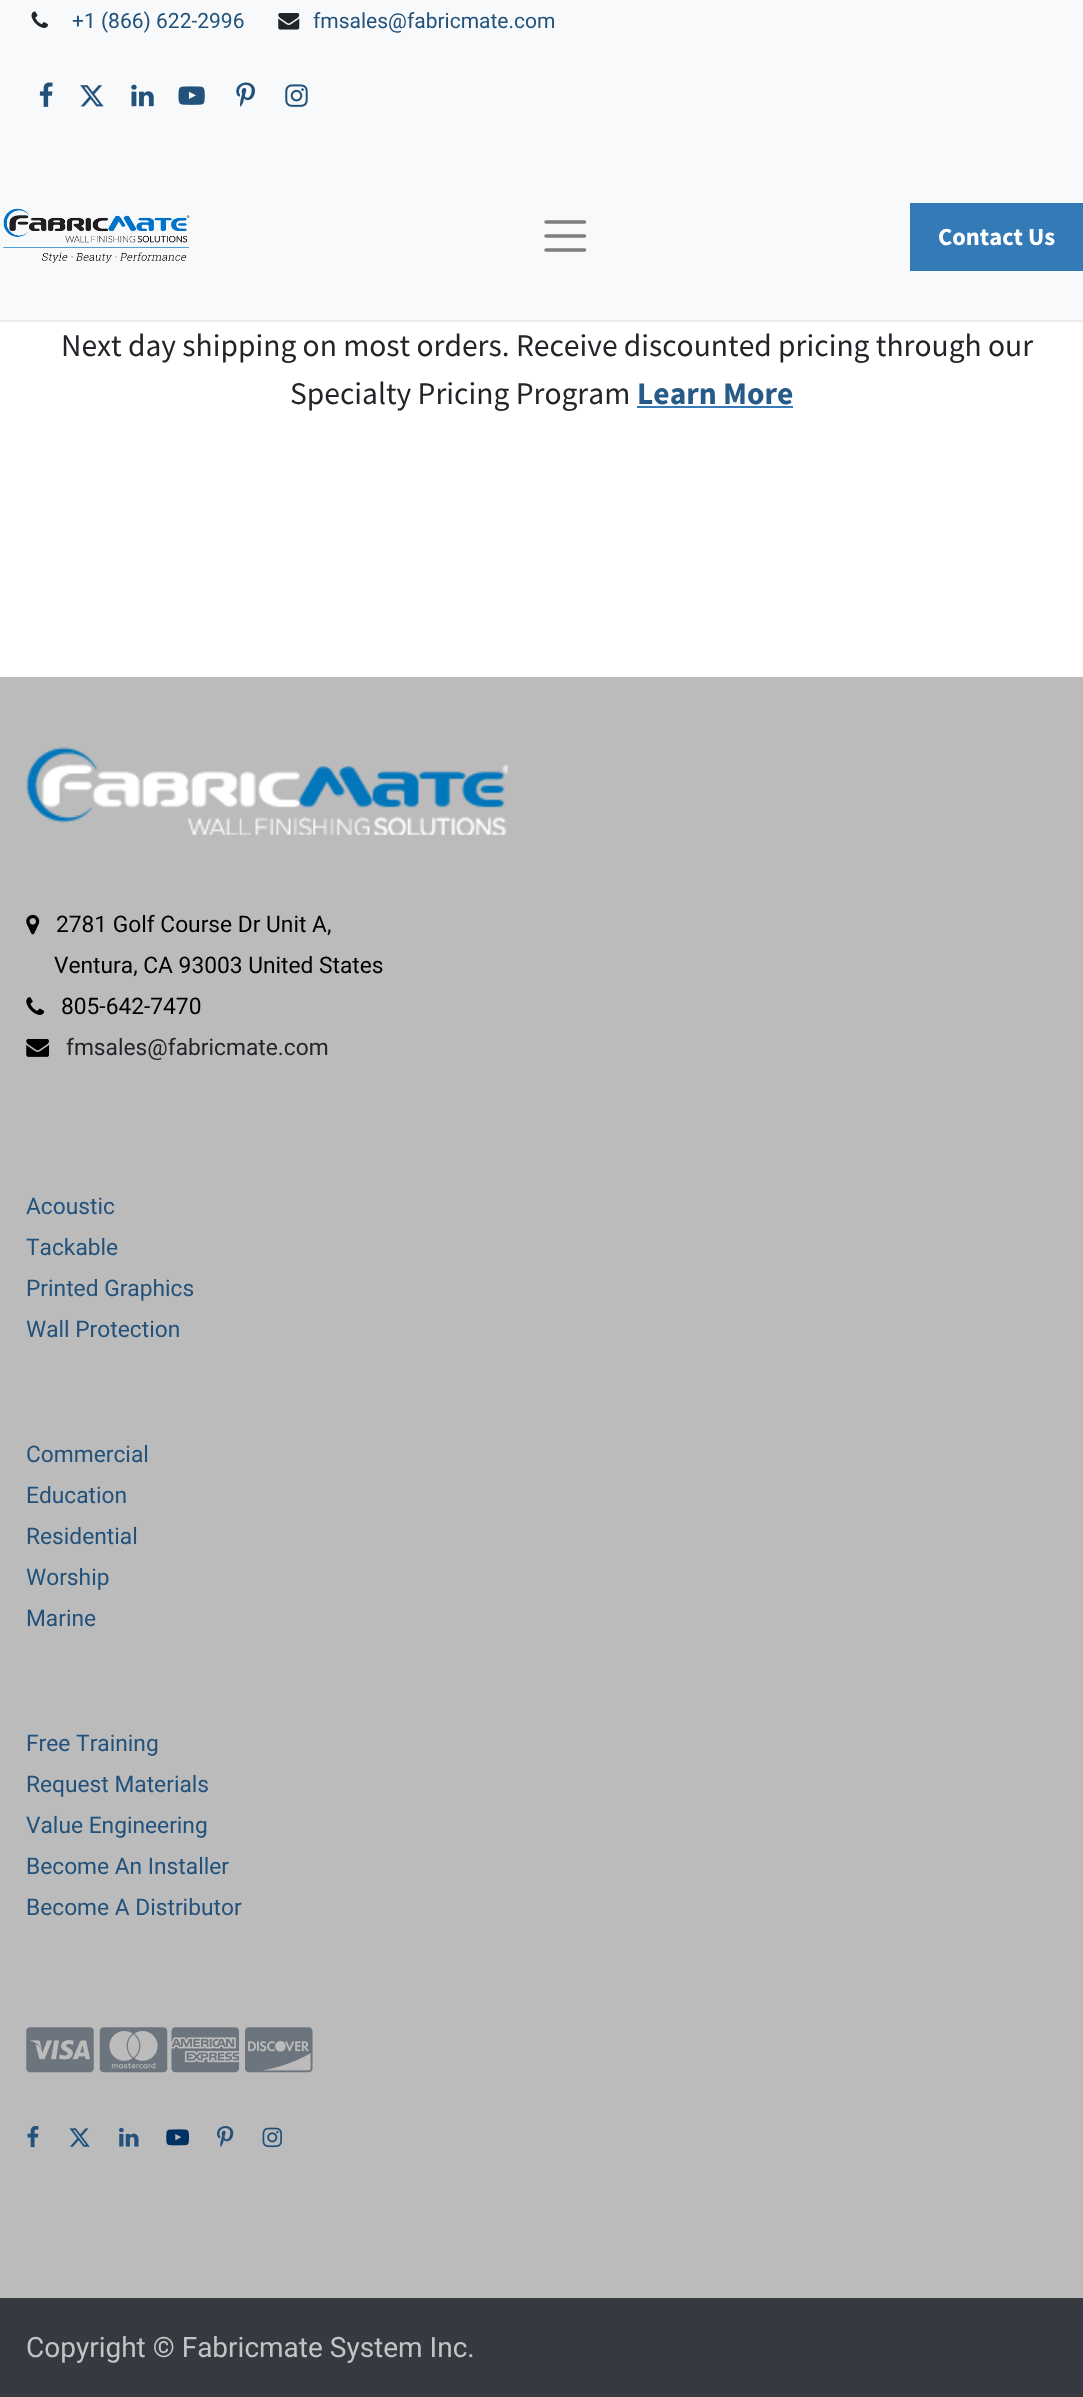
<?xml version="1.0" encoding="UTF-8"?>
<svg xmlns="http://www.w3.org/2000/svg" xmlns:xlink="http://www.w3.org/1999/xlink" width="1083" height="2397">
  <style>*{font-kerning:none!important;font-variant-ligatures:none!important}</style>
  <rect width="100%" height="100%" fill="#ffffff" />
  <rect width="1083" height="320" fill="#f8f9fa" />
  <image x="31" y="11" width="17" height="17" xlink:href="image1.png" />
  <image x="278" y="13" width="22" height="17" xlink:href="image2.png" />
  <image x="39" y="82" width="14" height="25" xlink:href="image3.png" />
  <image x="80" y="85" width="24" height="22" xlink:href="image4.png" />
  <image x="131" y="84" width="23" height="23" xlink:href="image5.png" />
  <image x="178" y="86" width="27" height="19" xlink:href="image6.png" />
  <image x="236" y="82" width="19" height="25" xlink:href="image7.png" />
  <image x="285" y="84" width="23" height="23" xlink:href="image8.png" />
  <rect y="320" width="1083" height="2" fill="#ececec" />
  <image x="3" y="208" width="187" height="55" xlink:href="image9.png" />
  <path d="M 546 222 h 38.5 m -38.5 14 h 38.5 m -38.5 14 h 38.5" fill="none" stroke="#7c7d7d" stroke-width="3.5" stroke-linecap="round" />
  <rect x="910" y="203" width="173" height="68" fill="#337ab7" />
  <rect x="637" y="406" width="156" height="2" fill="#337ab7" />
  <rect y="677" width="1083" height="1621" fill="#bbbbbb" />
  <image x="26" y="747" width="482" height="88" xlink:href="image10.png" />
  <image x="26" y="914" width="14" height="21" xlink:href="image11.png" />
  <image x="26" y="997" width="19" height="18" xlink:href="image12.png" />
  <image x="26" y="1039" width="23" height="18" xlink:href="image13.png" />
  <image x="26" y="2027" width="68" height="46" xlink:href="image14.png" />
  <image x="99" y="2027" width="69" height="46" xlink:href="image15.png" />
  <image x="171" y="2027" width="68" height="46" xlink:href="image16.png" />
  <image x="245" y="2027" width="68" height="46" xlink:href="image17.png" />
  <image x="27" y="2126" width="12" height="22" xlink:href="image18.png" />
  <image x="69" y="2128" width="21" height="19" xlink:href="image19.png" />
  <image x="119" y="2127" width="20" height="20" xlink:href="image20.png" />
  <image x="166" y="2129" width="23" height="17" xlink:href="image21.png" />
  <image x="217" y="2126" width="17" height="21" xlink:href="image22.png" />
  <image x="262" y="2127" width="20" height="21" xlink:href="image23.png" />
  <rect y="2298" width="1083" height="99" fill="#343a40" />
  <text x="72" y="28" style="font-family: Roboto; font-size: 21px; fill: #22527b">+1 (866) 622-2996</text>
  <text x="313" y="28" style="font-family: Roboto; font-size: 21px; fill: #22527b">fmsales@fabricmate.com</text>
  <text x="938" y="245" style="font-family: Source Sans Pro; font-size: 24.5px; font-weight: bold; fill: #ffffff">Contact Us</text>
  <text x="61" y="356" style="font-family: Source Sans Pro; font-size: 31.5px; fill: #212529">Next day shipping on most orders. Receive discounted pricing through our</text>
  <text x="290" y="404" style="font-family: Source Sans Pro; font-size: 31.5px; fill: #212529">Specialty Pricing Program</text>
  <text x="637" y="404" style="font-family: Source Sans Pro; font-size: 31.5px; font-weight: bold; fill: #265a87">Learn More</text>
  <text x="56" y="932" style="font-family: Roboto; font-size: 22.75px; fill: #000000">2781 Golf Course Dr Unit A,</text>
  <text x="54" y="973" style="font-family: Roboto; font-size: 22.75px; fill: #000000">Ventura, CA 93003 United States</text>
  <text x="61" y="1014" style="font-family: Roboto; font-size: 22.75px; fill: #000000">805-642-7470</text>
  <text x="66" y="1055" style="font-family: Roboto; font-size: 22.75px; fill: #212529">fmsales@fabricmate.com</text>
  <text x="26" y="1214" style="font-family: Roboto; font-size: 22.75px; fill: #22527b">Acoustic</text>
  <text x="26" y="1255" style="font-family: Roboto; font-size: 22.75px; fill: #22527b">Tackable</text>
  <text x="26" y="1296" style="font-family: Roboto; font-size: 22.75px; fill: #22527b">Printed Graphics</text>
  <text x="26" y="1337" style="font-family: Roboto; font-size: 22.75px; fill: #22527b">Wall Protection</text>
  <text x="26" y="1462" style="font-family: Roboto; font-size: 22.75px; fill: #22527b">Commercial</text>
  <text x="26" y="1503" style="font-family: Roboto; font-size: 22.75px; fill: #22527b">Education</text>
  <text x="26" y="1544" style="font-family: Roboto; font-size: 22.75px; fill: #22527b">Residential</text>
  <text x="26" y="1585" style="font-family: Roboto; font-size: 22.75px; fill: #22527b">Worship</text>
  <text x="26" y="1626" style="font-family: Roboto; font-size: 22.75px; fill: #22527b">Marine</text>
  <text x="26" y="1751" style="font-family: Roboto; font-size: 22.75px; fill: #22527b">Free Training</text>
  <text x="26" y="1792" style="font-family: Roboto; font-size: 22.75px; fill: #22527b">Request Materials</text>
  <text x="26" y="1833" style="font-family: Roboto; font-size: 22.75px; fill: #22527b">Value Engineering</text>
  <text x="26" y="1874" style="font-family: Roboto; font-size: 22.75px; fill: #22527b">Become An Installer</text>
  <text x="26" y="1915" style="font-family: Roboto; font-size: 22.75px; fill: #22527b">Become A Distributor</text>
  <text x="26" y="2357" style="font-family: Roboto; font-size: 28px; fill: #c2c4c6">Copyright © Fabricmate System Inc.</text>
</svg>
